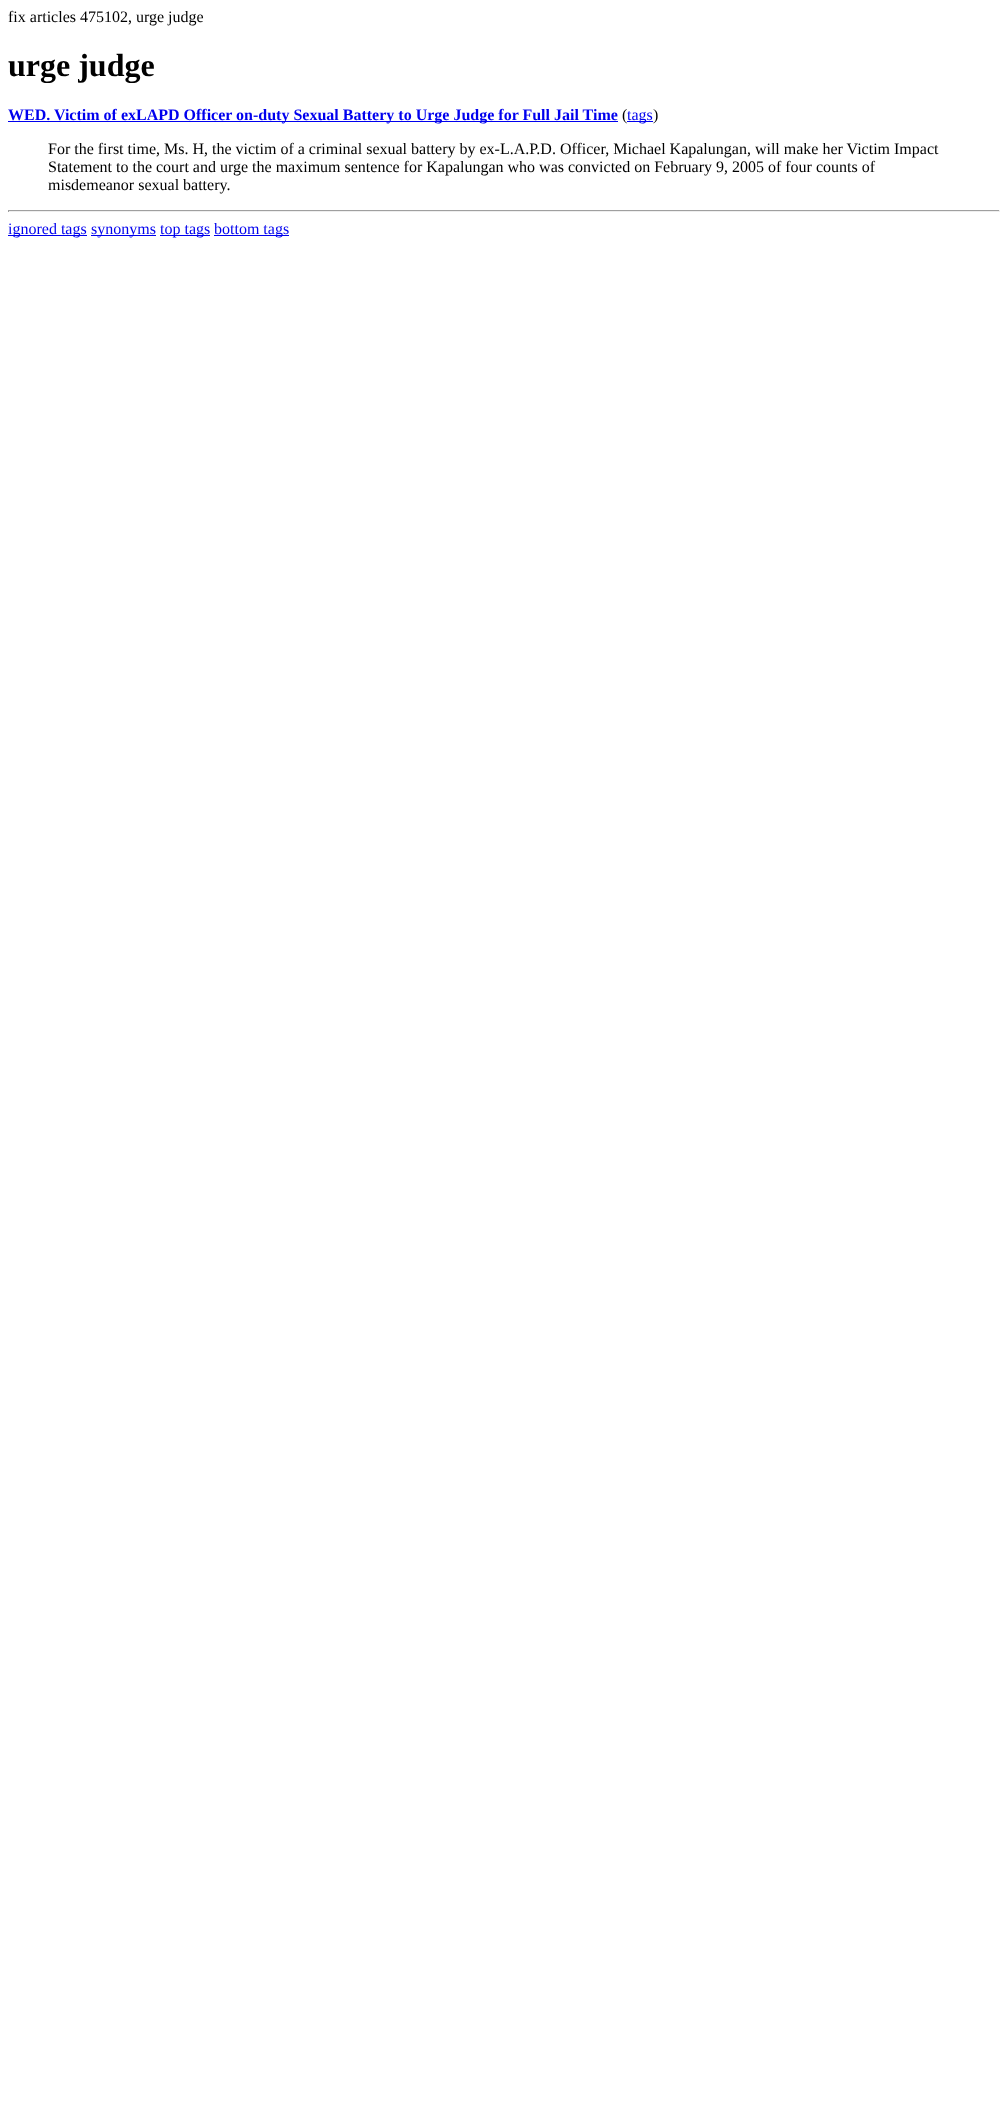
<?xml version="1.0" encoding="UTF-8"?>
<svg xmlns="http://www.w3.org/2000/svg" xmlns:xlink="http://www.w3.org/1999/xlink" width="1008" height="2109">
  <rect width="100%" height="100%" fill="#ffffff" />
  <rect x="8" y="121" width="610" height="1" fill="#0000ee" />
  <rect x="627" y="121" width="26" height="1" fill="#0000ee" />
  <rect x="8" y="210" width="992" height="1" fill="#9f9f9f" />
  <rect x="999" y="210" width="1" height="2" fill="#eeeeee" />
  <rect x="8" y="211" width="992" height="1" fill="#eeeeee" />
  <rect x="8" y="210" width="1" height="2" fill="#9f9f9f" />
  <rect x="8" y="235" width="79" height="1" fill="#0000ee" />
  <rect x="91" y="235" width="65" height="1" fill="#0000ee" />
  <rect x="160" y="235" width="50" height="1" fill="#0000ee" />
  <rect x="214" y="235" width="75" height="1" fill="#0000ee" />
  <text x="8" y="22" style="font-family: Liberation Serif; font-size: 16px; fill: #000000">fix articles 475102, urge judge</text>
  <text x="8" y="76" style="font-family: Liberation Serif; font-size: 32px; font-weight: bold; fill: #000000">urge judge</text>
  <text x="8" y="120" style="font-family: Liberation Serif; font-size: 16px; font-weight: bold; fill: #0000ee">WED. Victim of exLAPD Officer on-duty Sexual Battery to Urge Judge for Full Jail Time</text>
  <text x="622" y="120" style="font-family: Liberation Serif; font-size: 16px; fill: #000000">(</text>
  <text x="627" y="120" style="font-family: Liberation Serif; font-size: 16px; fill: #0000ee">tags</text>
  <text x="653" y="120" style="font-family: Liberation Serif; font-size: 16px; fill: #000000">)</text>
  <text x="48" y="154" style="font-family: Liberation Serif; font-size: 16px; fill: #000000">For the first time, Ms. H, the victim of a criminal sexual battery by ex-L.A.P.D. Officer, Michael Kapalungan, will make her Victim Impact</text>
  <text x="48" y="172" style="font-family: Liberation Serif; font-size: 16px; fill: #000000">Statement to the court and urge the maximum sentence for Kapalungan who was convicted on February 9, 2005 of four counts of</text>
  <text x="48" y="190" style="font-family: Liberation Serif; font-size: 16px; fill: #000000">misdemeanor sexual battery.</text>
  <text x="8" y="234" style="font-family: Liberation Serif; font-size: 16px; fill: #0000ee">ignored tags</text>
  <text x="91" y="234" style="font-family: Liberation Serif; font-size: 16px; fill: #0000ee">synonyms</text>
  <text x="160" y="234" style="font-family: Liberation Serif; font-size: 16px; fill: #0000ee">top tags</text>
  <text x="214" y="234" style="font-family: Liberation Serif; font-size: 16px; fill: #0000ee">bottom tags</text>
</svg>
